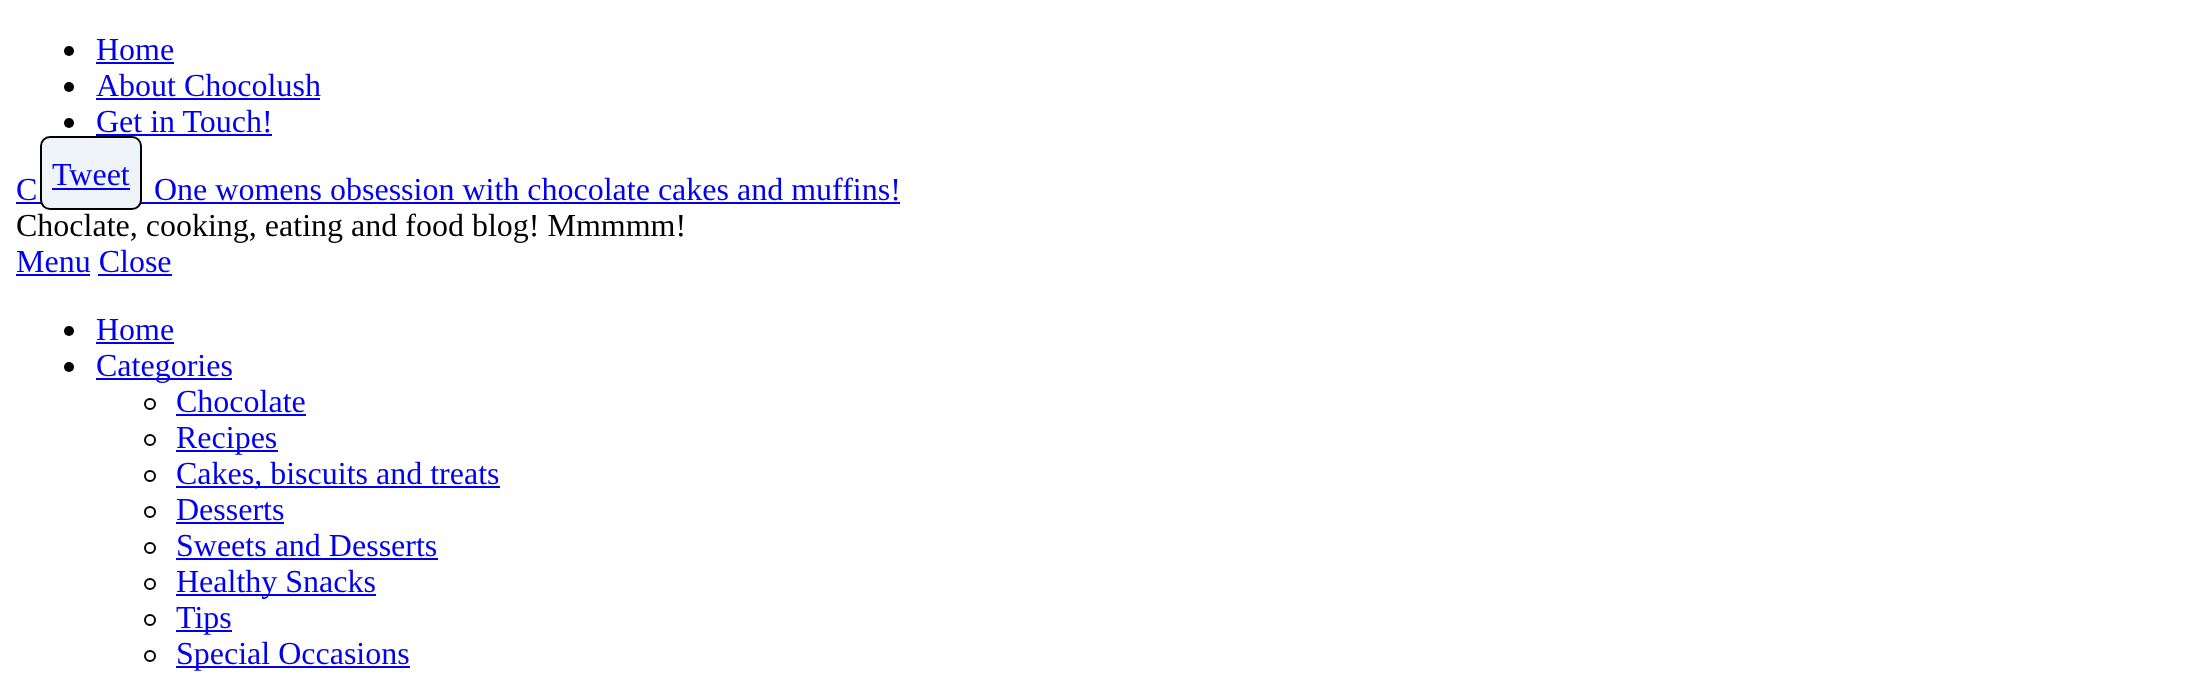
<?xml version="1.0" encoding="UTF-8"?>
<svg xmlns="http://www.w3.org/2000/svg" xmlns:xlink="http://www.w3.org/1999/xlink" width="2188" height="676">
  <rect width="100%" height="100%" fill="#ffffff" />
  <circle cx="69" cy="51" r="5" fill="#000000" />
  <rect x="96" y="62" width="78" height="2" fill="#0000ee" />
  <circle cx="69" cy="87" r="5" fill="#000000" />
  <rect x="96" y="98" width="224" height="2" fill="#0000ee" />
  <circle cx="69" cy="123" r="5" fill="#000000" />
  <rect x="96" y="134" width="176" height="2" fill="#0000ee" />
  <rect x="16" y="202" width="884" height="2" fill="#0000ee" />
  <rect x="41" y="137" width="100" height="72" rx="9" fill="#eff3fa" stroke="#000000" stroke-width="2" />
  <rect x="52" y="188" width="78" height="2" fill="#0000ee" />
  <rect x="16" y="274" width="74" height="2" fill="#0000ee" />
  <rect x="98" y="274" width="74" height="2" fill="#0000ee" />
  <circle cx="69" cy="331" r="5" fill="#000000" />
  <rect x="96" y="342" width="78" height="2" fill="#0000ee" />
  <circle cx="69" cy="367" r="5" fill="#000000" />
  <rect x="96" y="378" width="136" height="2" fill="#0000ee" />
  <circle cx="150" cy="404" r="5" fill="none" stroke="#000000" stroke-width="2" />
  <rect x="176" y="414" width="130" height="2" fill="#0000ee" />
  <circle cx="150" cy="440" r="5" fill="none" stroke="#000000" stroke-width="2" />
  <rect x="176" y="450" width="102" height="2" fill="#0000ee" />
  <circle cx="150" cy="476" r="5" fill="none" stroke="#000000" stroke-width="2" />
  <rect x="176" y="486" width="324" height="2" fill="#0000ee" />
  <circle cx="150" cy="512" r="5" fill="none" stroke="#000000" stroke-width="2" />
  <rect x="176" y="522" width="108" height="2" fill="#0000ee" />
  <circle cx="150" cy="548" r="5" fill="none" stroke="#000000" stroke-width="2" />
  <rect x="176" y="558" width="262" height="2" fill="#0000ee" />
  <circle cx="150" cy="584" r="5" fill="none" stroke="#000000" stroke-width="2" />
  <rect x="176" y="594" width="200" height="2" fill="#0000ee" />
  <circle cx="150" cy="620" r="5" fill="none" stroke="#000000" stroke-width="2" />
  <rect x="176" y="630" width="56" height="2" fill="#0000ee" />
  <circle cx="150" cy="656" r="5" fill="none" stroke="#000000" stroke-width="2" />
  <rect x="176" y="666" width="234" height="2" fill="#0000ee" />
  <text x="96" y="60" style="font-family: Liberation Serif; font-size: 32px; fill: #0000ee">Home</text>
  <text x="96" y="96" style="font-family: Liberation Serif; font-size: 32px; fill: #0000ee">About Chocolush</text>
  <text x="96" y="132" style="font-family: Liberation Serif; font-size: 32px; fill: #0000ee">Get in Touch!</text>
  <text x="52" y="185" style="font-family: Liberation Serif; font-size: 32px; fill: #0000ee">Tweet</text>
  <text x="16" y="200" style="font-family: Liberation Serif; font-size: 32px; fill: #0000ee">C</text>
  <text x="154" y="200" style="font-family: Liberation Serif; font-size: 32px; fill: #0000ee">One womens obsession with chocolate cakes and muffins!</text>
  <text x="16" y="236" style="font-family: Liberation Serif; font-size: 32px; fill: #000000">Choclate, cooking, eating and food blog! Mmmmm!</text>
  <text x="16" y="272" style="font-family: Liberation Serif; font-size: 32px; fill: #0000ee">Menu Close</text>
  <text x="96" y="340" style="font-family: Liberation Serif; font-size: 32px; fill: #0000ee">Home</text>
  <text x="96" y="376" style="font-family: Liberation Serif; font-size: 32px; fill: #0000ee">Categories</text>
  <text x="176" y="412" style="font-family: Liberation Serif; font-size: 32px; fill: #0000ee">Chocolate</text>
  <text x="176" y="448" style="font-family: Liberation Serif; font-size: 32px; fill: #0000ee">Recipes</text>
  <text x="176" y="484" style="font-family: Liberation Serif; font-size: 32px; fill: #0000ee">Cakes, biscuits and treats</text>
  <text x="176" y="520" style="font-family: Liberation Serif; font-size: 32px; fill: #0000ee">Desserts</text>
  <text x="176" y="556" style="font-family: Liberation Serif; font-size: 32px; fill: #0000ee">Sweets and Desserts</text>
  <text x="176" y="592" style="font-family: Liberation Serif; font-size: 32px; fill: #0000ee">Healthy Snacks</text>
  <text x="176" y="628" style="font-family: Liberation Serif; font-size: 32px; fill: #0000ee">Tips</text>
  <text x="176" y="664" style="font-family: Liberation Serif; font-size: 32px; fill: #0000ee">Special Occasions</text>
</svg>
